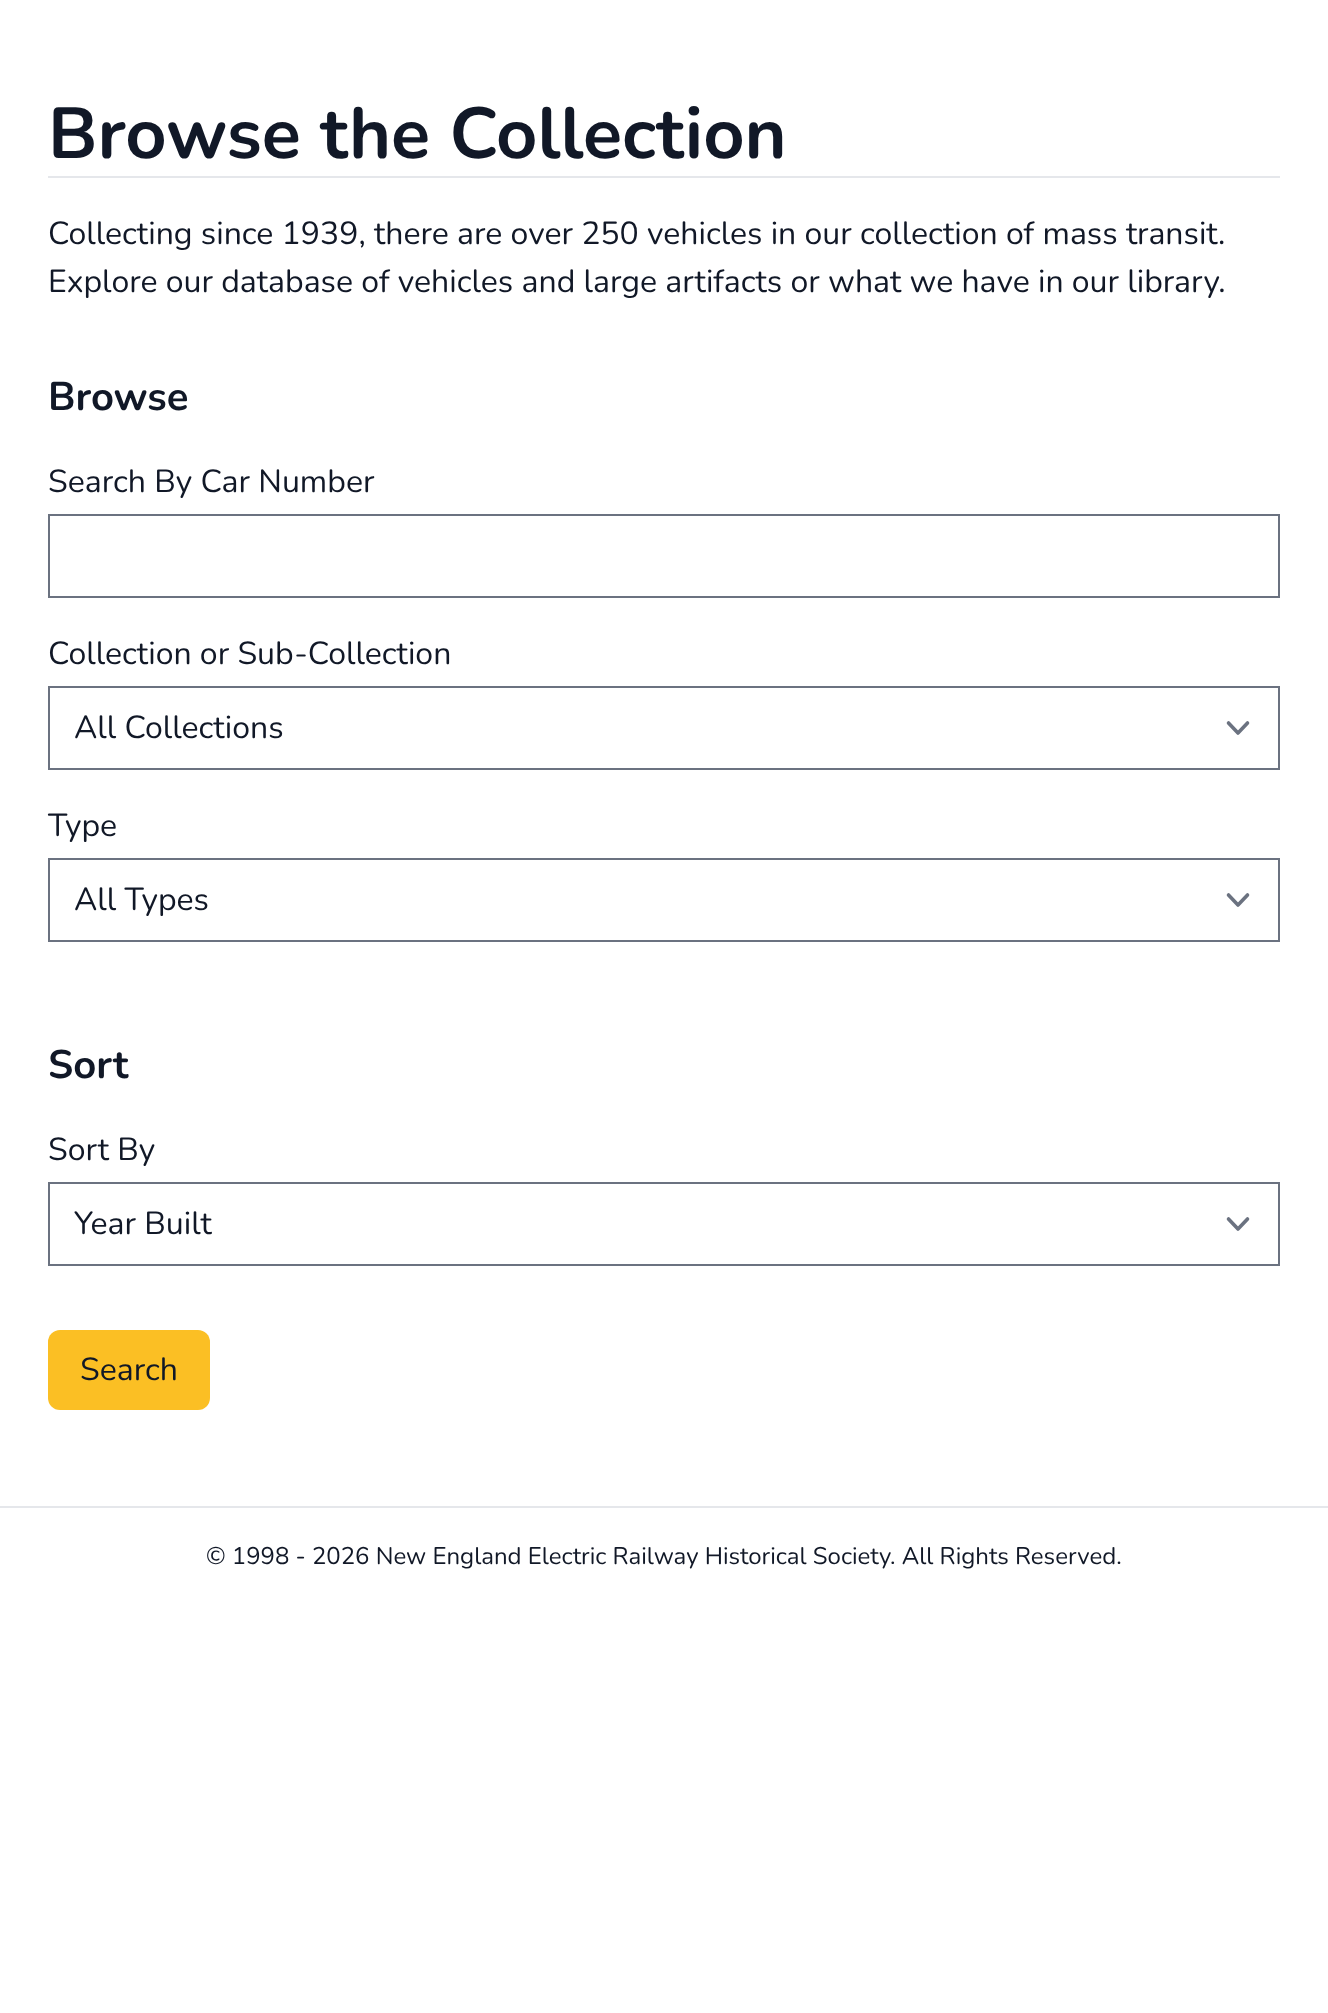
<?xml version="1.0" encoding="UTF-8"?>
<svg xmlns="http://www.w3.org/2000/svg" xmlns:xlink="http://www.w3.org/1999/xlink" width="1328" height="2013">
  <rect width="100%" height="100%" fill="#ffffff" />
  <rect x="48" y="176" width="1232" height="2" fill="#e5e7eb" />
  <rect x="49" y="515" width="1230" height="82" fill="none" stroke="#6b7280" stroke-width="2" />
  <path d="M 1228.5 723 l 9.5 10 l 9.5 -10" fill="none" stroke="#6b7280" stroke-width="3.6" stroke-linecap="round" stroke-linejoin="round" />
  <rect x="49" y="687" width="1230" height="82" fill="none" stroke="#6b7280" stroke-width="2" />
  <path d="M 1228.5 895 l 9.5 10 l 9.5 -10" fill="none" stroke="#6b7280" stroke-width="3.6" stroke-linecap="round" stroke-linejoin="round" />
  <rect x="49" y="859" width="1230" height="82" fill="none" stroke="#6b7280" stroke-width="2" />
  <path d="M 1228.5 1219 l 9.5 10 l 9.5 -10" fill="none" stroke="#6b7280" stroke-width="3.6" stroke-linecap="round" stroke-linejoin="round" />
  <rect x="49" y="1183" width="1230" height="82" fill="none" stroke="#6b7280" stroke-width="2" />
  <rect x="48" y="1330" width="162" height="80" rx="12" fill="#fbbf24" />
  <rect y="1506" width="1328" height="2" fill="#e5e7eb" />
  <text x="48" y="158" style="font-family: Nunito; font-size: 72px; font-weight: bold; fill: #111827">Browse the Collection</text>
  <text x="48" y="244" style="font-family: Nunito; font-size: 32px; fill: #111827">Collecting since 1939, there are over 250 vehicles in our collection of mass transit.</text>
  <text x="48" y="292" style="font-family: Nunito; font-size: 32px; fill: #111827">Explore our database of vehicles and large artifacts or what we have in our library.</text>
  <text x="48" y="410" style="font-family: Nunito; font-size: 40px; font-weight: bold; fill: #111827">Browse</text>
  <text x="48" y="492" style="font-family: Nunito; font-size: 32px; fill: #111827">Search By Car Number</text>
  <text x="48" y="664" style="font-family: Nunito; font-size: 32px; fill: #111827">Collection or Sub-Collection</text>
  <text x="74" y="738" style="font-family: Nunito; font-size: 32px; fill: #111827">All Collections</text>
  <text x="48" y="836" style="font-family: Nunito; font-size: 32px; fill: #111827">Type</text>
  <text x="74" y="910" style="font-family: Nunito; font-size: 32px; fill: #111827">All Types</text>
  <text x="48" y="1078" style="font-family: Nunito; font-size: 40px; font-weight: bold; fill: #111827">Sort</text>
  <text x="48" y="1160" style="font-family: Nunito; font-size: 32px; fill: #111827">Sort By</text>
  <text x="74" y="1234" style="font-family: Nunito; font-size: 32px; fill: #111827">Year Built</text>
  <text x="80" y="1380" style="font-family: Nunito; font-size: 32px; fill: #111827">Search</text>
  <text x="206" y="1564" style="font-family: Nunito; font-size: 24px; fill: #111827">© 1998 - 2026 New England Electric Railway Historical Society. All Rights Reserved.</text>
</svg>
